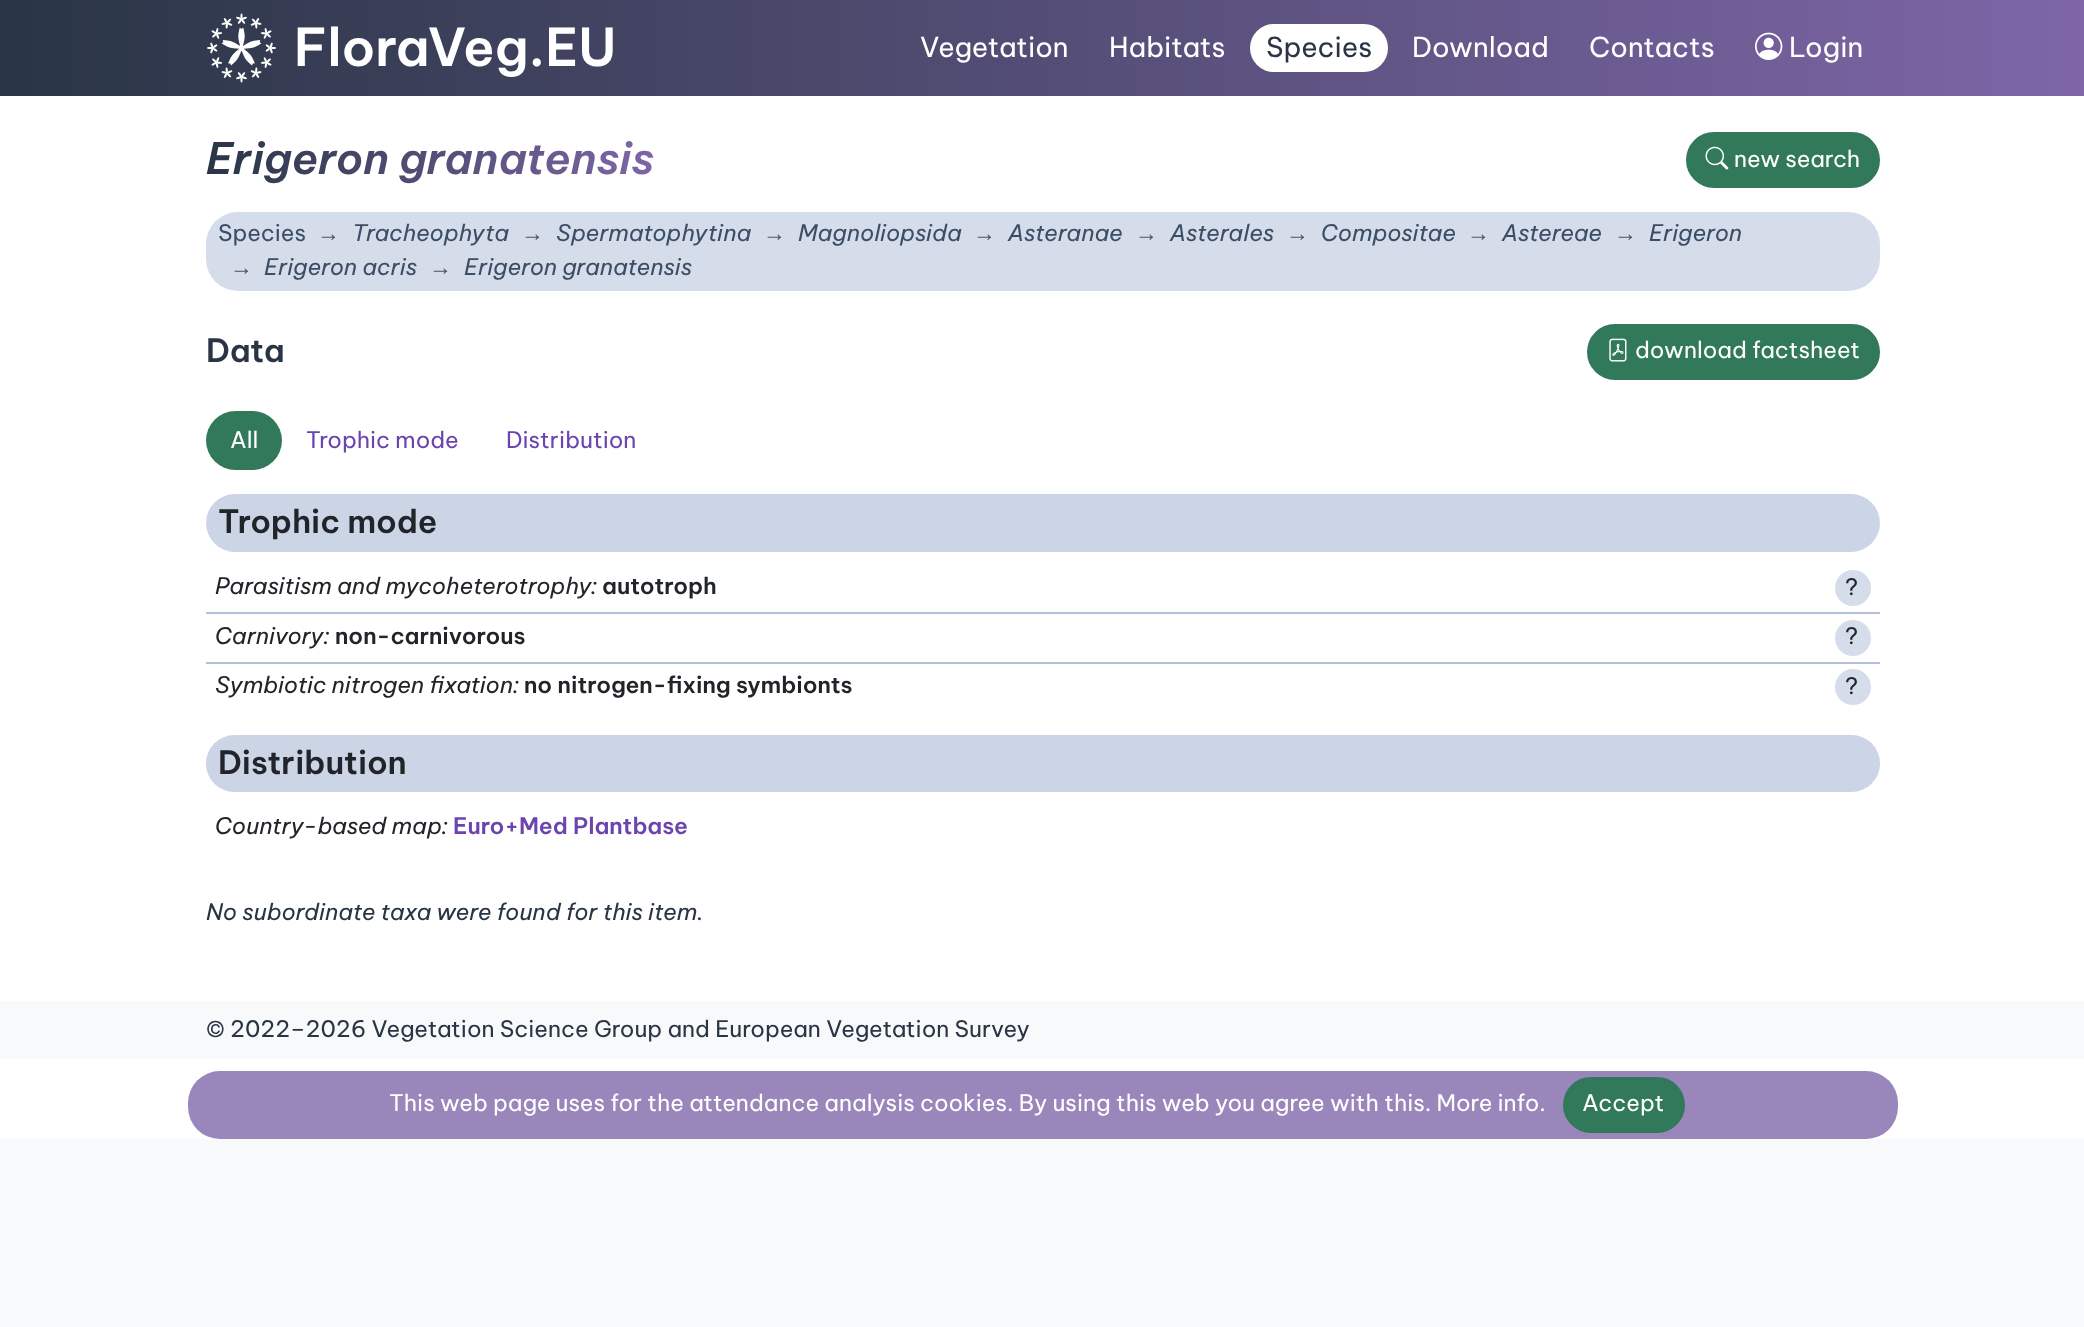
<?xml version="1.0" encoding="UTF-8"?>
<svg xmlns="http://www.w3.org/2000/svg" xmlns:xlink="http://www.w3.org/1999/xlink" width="2084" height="1327">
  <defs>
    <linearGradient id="g1" gradientUnits="userSpaceOnUse" x1="206" y1="160" x2="654" y2="160"><stop offset="0" stop-color="#293545" /><stop offset="1" stop-color="#7e66a7" /></linearGradient>
    <linearGradient id="g2" gradientUnits="userSpaceOnUse" x1="0" y1="48" x2="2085" y2="48"><stop offset="0" stop-color="#293545" /><stop offset="1" stop-color="#7e66a7" /></linearGradient>
  </defs>
  <rect width="100%" height="100%" fill="#f8f9fb" />
  <rect width="2084" height="96" fill="url(#g2)" />
  <image x="207" y="13" width="69" height="70" xlink:href="image1.png" />
  <rect x="1250" y="24" width="138" height="48" rx="24" fill="#ffffff" />
  <image x="1755" y="32" width="28" height="28" xlink:href="image2.png" />
  <rect y="96" width="2084" height="1043" fill="#ffffff" />
  <rect x="1687" y="133" width="192" height="54" rx="27" fill="#31795a" stroke="#31795a" stroke-width="2" />
  <image x="1705" y="146" width="24" height="24" xlink:href="image3.png" />
  <rect x="206" y="212" width="1674" height="79" rx="32" fill="#d5ddeb" />
  <rect x="1588" y="325" width="291" height="54" rx="27" fill="#31795a" stroke="#31795a" stroke-width="2" />
  <image x="1609" y="338" width="18" height="24" xlink:href="image4.png" />
  <rect x="206" y="411" width="76" height="59" rx="29.5" fill="#31795a" />
  <rect x="206" y="494" width="1674" height="58" rx="29" fill="#cbd5e6" />
  <circle cx="1853" cy="588" r="18" fill="#d5ddeb" />
  <rect x="206" y="612" width="1674" height="2" fill="#b2c1db" />
  <circle cx="1853" cy="638" r="18" fill="#d5ddeb" />
  <rect x="206" y="662" width="1674" height="2" fill="#b2c1db" />
  <circle cx="1853" cy="687" r="18" fill="#d5ddeb" />
  <rect x="206" y="735" width="1674" height="57" rx="28.5" fill="#cbd5e6" />
  <rect y="1001" width="2084" height="58" fill="#f8f9fb" />
  <rect x="188" y="1071" width="1710" height="68" rx="32" fill="#9986ba" />
  <rect x="1564" y="1078" width="120" height="54" rx="27" fill="#31795a" stroke="#31795a" stroke-width="2" />
  <text x="294" y="66" style="font-family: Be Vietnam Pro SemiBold; font-size: 52px; font-weight: 600; fill: #ffffff">FloraVeg.EU</text>
  <text x="920" y="57" style="font-family: Be Vietnam Pro; font-size: 27.5px; fill: #ffffff">Vegetation</text>
  <text x="1109" y="57" style="font-family: Be Vietnam Pro; font-size: 27.5px; fill: #ffffff">Habitats</text>
  <text x="1266" y="57" style="font-family: Be Vietnam Pro; font-size: 27.5px; fill: #293545">Species</text>
  <text x="1412" y="57" style="font-family: Be Vietnam Pro; font-size: 27.5px; fill: #ffffff">Download</text>
  <text x="1589" y="57" style="font-family: Be Vietnam Pro; font-size: 27.5px; fill: #ffffff">Contacts</text>
  <text x="1789" y="57" style="font-family: Be Vietnam Pro; font-size: 27.5px; fill: #ffffff">Login</text>
  <text x="206" y="174" style="font-family: Be Vietnam Pro SemiBold; font-size: 43.25px; font-weight: 600; font-style: italic; fill: url(#g1)">Erigeron granatensis</text>
  <text x="1734" y="167" style="font-family: Be Vietnam Pro; font-size: 22.8px; fill: #ffffff">new search</text>
  <text x="218" y="241" style="font-family: Be Vietnam Pro; font-size: 22.8px; fill: #3c4e65">Species</text>
  <text x="317" y="241" style="font-family: Liberation Sans; font-size: 22.8px; fill: #4e535a">→</text>
  <text x="352" y="241" style="font-family: Be Vietnam Pro; font-size: 22.8px; font-style: italic; fill: #3c4e65">Tracheophyta</text>
  <text x="521" y="241" style="font-family: Liberation Sans; font-size: 22.8px; fill: #4e535a">→</text>
  <text x="556" y="241" style="font-family: Be Vietnam Pro; font-size: 22.8px; font-style: italic; fill: #3c4e65">Spermatophytina</text>
  <text x="763" y="241" style="font-family: Liberation Sans; font-size: 22.8px; fill: #4e535a">→</text>
  <text x="798" y="241" style="font-family: Be Vietnam Pro; font-size: 22.8px; font-style: italic; fill: #3c4e65">Magnoliopsida</text>
  <text x="973" y="241" style="font-family: Liberation Sans; font-size: 22.8px; fill: #4e535a">→</text>
  <text x="1008" y="241" style="font-family: Be Vietnam Pro; font-size: 22.8px; font-style: italic; fill: #3c4e65">Asteranae</text>
  <text x="1135" y="241" style="font-family: Liberation Sans; font-size: 22.8px; fill: #4e535a">→</text>
  <text x="1170" y="241" style="font-family: Be Vietnam Pro; font-size: 22.8px; font-style: italic; fill: #3c4e65">Asterales</text>
  <text x="1286" y="241" style="font-family: Liberation Sans; font-size: 22.8px; fill: #4e535a">→</text>
  <text x="1321" y="241" style="font-family: Be Vietnam Pro; font-size: 22.8px; font-style: italic; fill: #3c4e65">Compositae</text>
  <text x="1467" y="241" style="font-family: Liberation Sans; font-size: 22.8px; fill: #4e535a">→</text>
  <text x="1502" y="241" style="font-family: Be Vietnam Pro; font-size: 22.8px; font-style: italic; fill: #3c4e65">Astereae</text>
  <text x="1614" y="241" style="font-family: Liberation Sans; font-size: 22.8px; fill: #4e535a">→</text>
  <text x="1649" y="241" style="font-family: Be Vietnam Pro; font-size: 22.8px; font-style: italic; fill: #3c4e65">Erigeron</text>
  <text x="230" y="275" style="font-family: Liberation Sans; font-size: 22.8px; fill: #4e535a">→</text>
  <text x="264" y="275" style="font-family: Be Vietnam Pro; font-size: 22.8px; font-style: italic; fill: #3c4e65">Erigeron acris</text>
  <text x="429" y="275" style="font-family: Liberation Sans; font-size: 22.8px; fill: #4e535a">→</text>
  <text x="464" y="275" style="font-family: Be Vietnam Pro; font-size: 22.8px; font-style: italic; fill: #3c4e65">Erigeron granatensis</text>
  <text x="206" y="362" style="font-family: Be Vietnam Pro SemiBold; font-size: 32px; font-weight: 600; fill: #293545">Data</text>
  <text x="1635" y="358" style="font-family: Be Vietnam Pro; font-size: 22.8px; fill: #ffffff">download factsheet</text>
  <text x="230" y="448" style="font-family: Be Vietnam Pro; font-size: 22.8px; fill: #ffffff">All</text>
  <text x="306" y="448" style="font-family: Be Vietnam Pro; font-size: 22.8px; fill: #6c44af">Trophic mode</text>
  <text x="506" y="448" style="font-family: Be Vietnam Pro; font-size: 22.8px; fill: #6c44af">Distribution</text>
  <text x="218" y="533" style="font-family: Be Vietnam Pro SemiBold; font-size: 32px; font-weight: 600; fill: #212529">Trophic mode</text>
  <text x="215" y="594" style="font-family: Be Vietnam Pro; font-size: 22.8px; font-style: italic; fill: #212529">Parasitism and mycoheterotrophy</text>
  <text x="591" y="594" style="font-family: Be Vietnam Pro; font-size: 22.8px; font-style: italic; fill: #212529">:</text>
  <text x="602" y="594" style="font-family: Be Vietnam Pro SemiBold; font-size: 22.8px; font-weight: 600; fill: #212529">autotroph</text>
  <text x="1845" y="595" style="font-family: Be Vietnam Pro; font-size: 22.8px; fill: #212529">?</text>
  <text x="215" y="644" style="font-family: Be Vietnam Pro; font-size: 22.8px; font-style: italic; fill: #212529">Carnivory:</text>
  <text x="335" y="644" style="font-family: Be Vietnam Pro SemiBold; font-size: 22.8px; font-weight: 600; fill: #212529">non-carnivorous</text>
  <text x="1845" y="644" style="font-family: Be Vietnam Pro; font-size: 22.8px; fill: #212529">?</text>
  <text x="215" y="693" style="font-family: Be Vietnam Pro; font-size: 22.8px; font-style: italic; fill: #212529">Symbiotic nitrogen fixation:</text>
  <text x="524" y="693" style="font-family: Be Vietnam Pro SemiBold; font-size: 22.8px; font-weight: 600; fill: #212529">no nitrogen-fixing symbionts</text>
  <text x="1845" y="694" style="font-family: Be Vietnam Pro; font-size: 22.8px; fill: #212529">?</text>
  <text x="218" y="774" style="font-family: Be Vietnam Pro SemiBold; font-size: 32px; font-weight: 600; fill: #212529">Distribution</text>
  <text x="215" y="834" style="font-family: Be Vietnam Pro; font-size: 22.8px; font-style: italic; fill: #212529">Country-based map:</text>
  <text x="453" y="834" style="font-family: Be Vietnam Pro SemiBold; font-size: 22.8px; font-weight: 600; fill: #6c44af">Euro+Med Plantbase</text>
  <text x="206" y="920" style="font-family: Be Vietnam Pro; font-size: 22.8px; font-style: italic; fill: #293545">No subordinate taxa were found for this item.</text>
  <text x="206" y="1037" style="font-family: Be Vietnam Pro; font-size: 22.8px; fill: #293545">© 2022–2026 Vegetation Science Group and European Vegetation Survey</text>
  <text x="389" y="1111" style="font-family: Be Vietnam Pro; font-size: 22.8px; fill: #ffffff">This web page uses for the attendance analysis cookies. By using this web you agree with this. More info.</text>
  <text x="1582" y="1111" style="font-family: Be Vietnam Pro; font-size: 22.8px; fill: #ffffff">Accept</text>
</svg>
